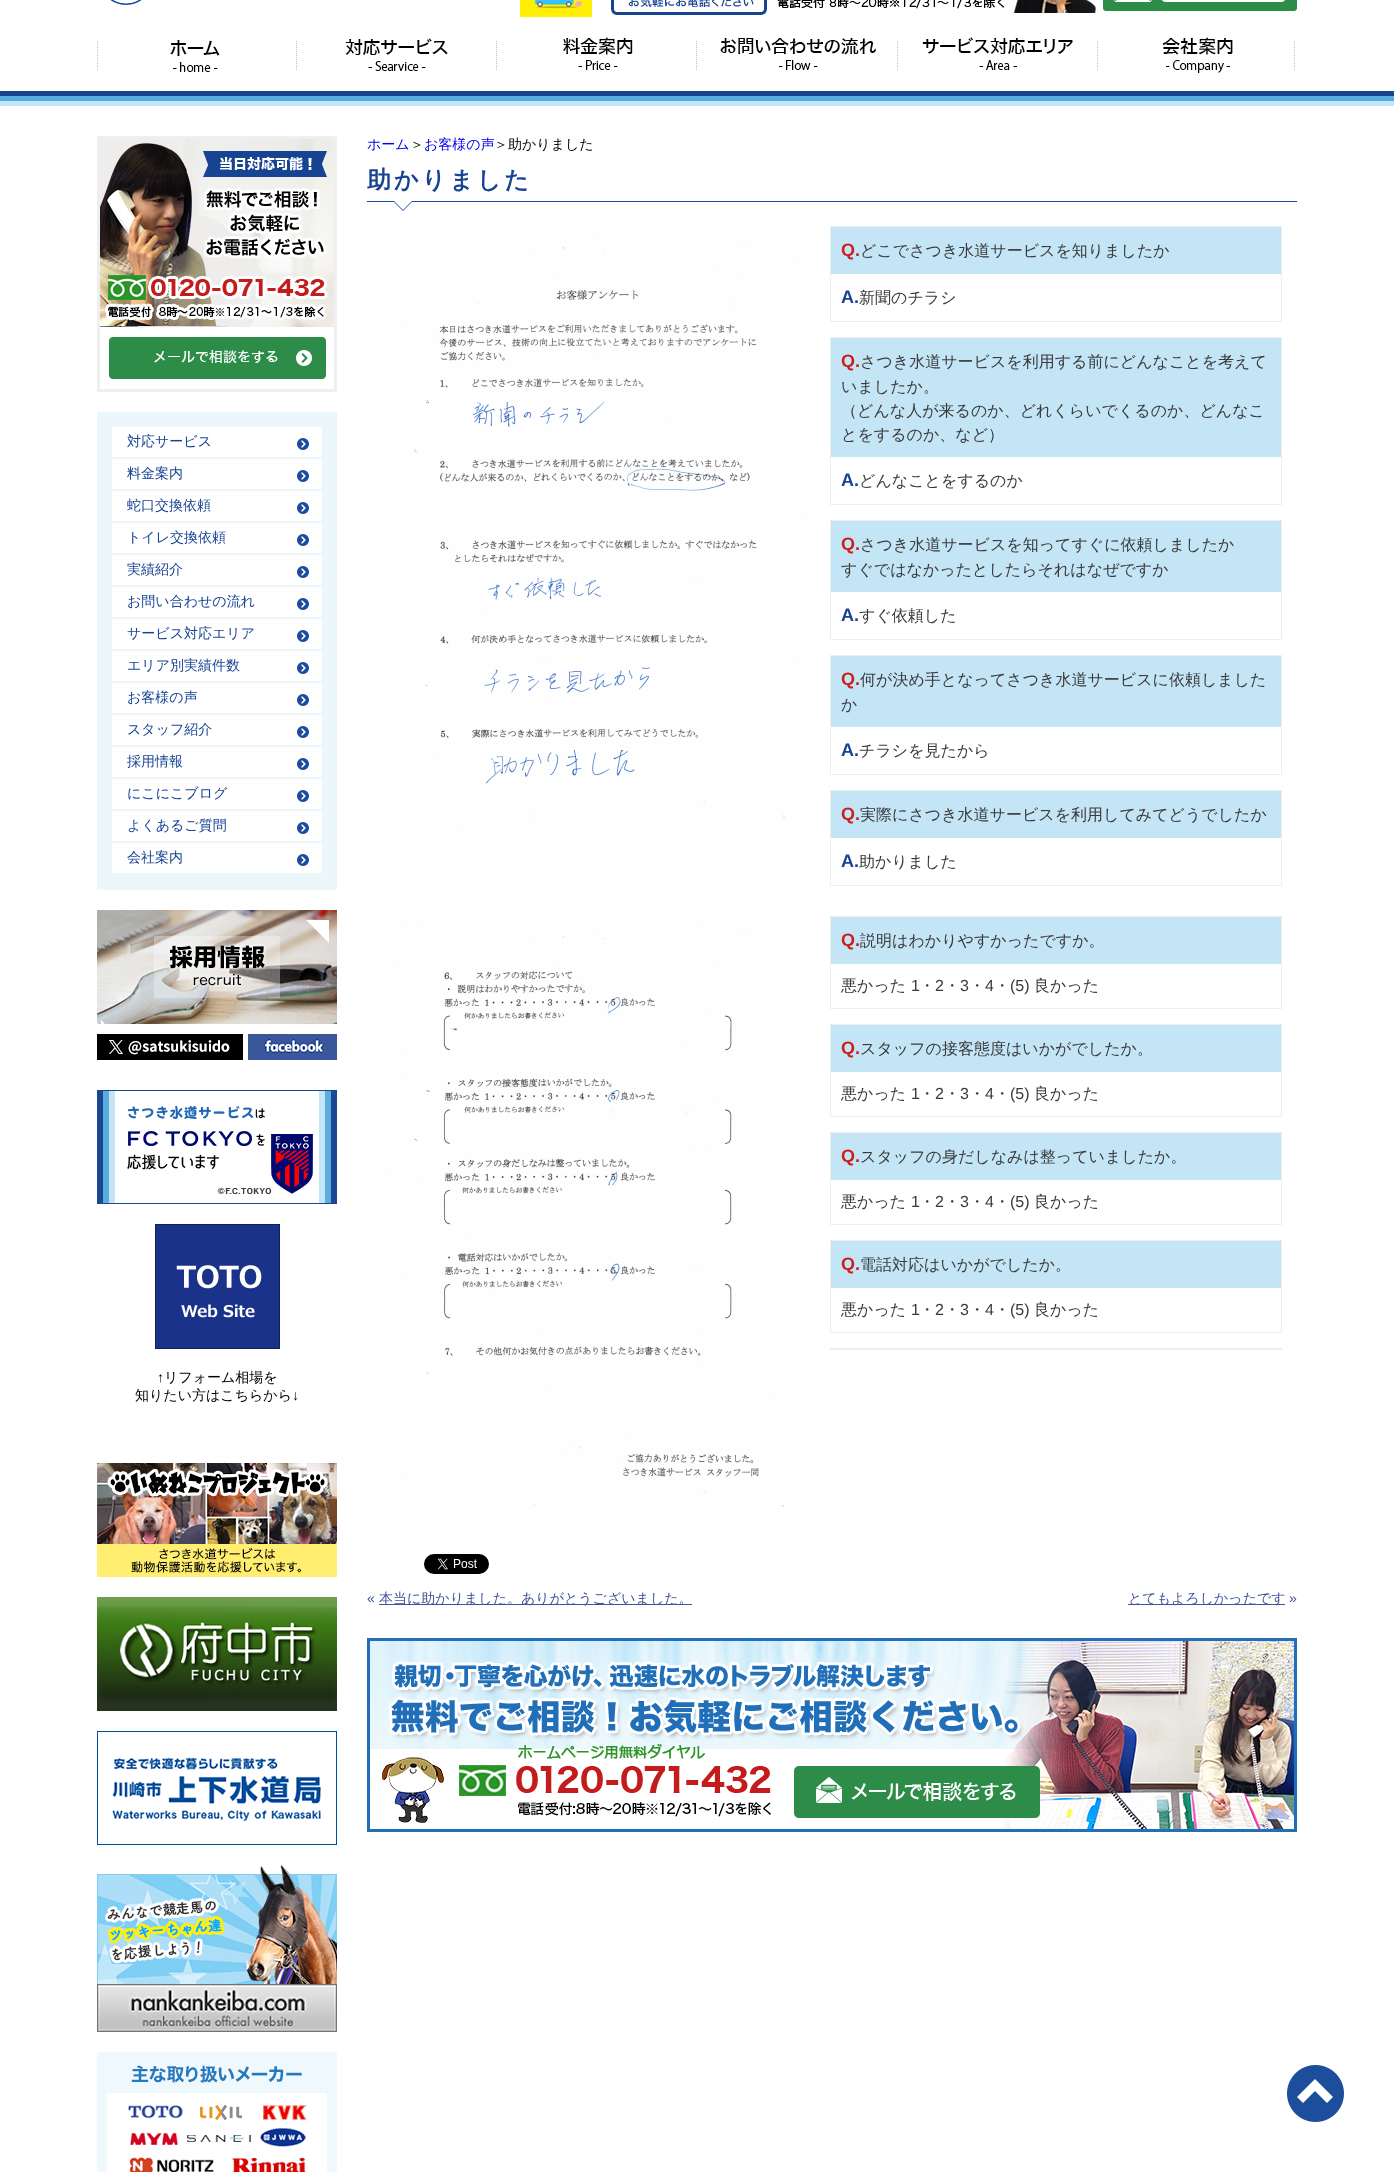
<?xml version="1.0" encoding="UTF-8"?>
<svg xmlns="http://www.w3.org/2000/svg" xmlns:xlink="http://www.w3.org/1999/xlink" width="1394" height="2172">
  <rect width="100%" height="100%" fill="#ffffff" />
  <image x="110" y="0" width="32" height="5" xlink:href="image1.png" />
  <image x="520" y="0" width="777" height="17" xlink:href="image2.png" />
  <image x="0" y="91" width="1394" height="15" xlink:href="image3.png" />
  <image x="97" y="40" width="200" height="32" xlink:href="image4.png" />
  <image x="345" y="38" width="152" height="33" xlink:href="image5.png" />
  <image x="563" y="37" width="134" height="33" xlink:href="image6.png" />
  <image x="720" y="38" width="156" height="32" xlink:href="image7.png" />
  <image x="897" y="37" width="176" height="33" xlink:href="image8.png" />
  <image x="1097" y="37" width="198" height="36" xlink:href="image9.png" />
  <image x="97" y="136" width="240" height="256" xlink:href="image10.png" />
  <rect x="97" y="412" width="240" height="478" fill="#ecf7fc" />
  <image x="112" y="427" width="210" height="30" xlink:href="image11.png" />
  <image x="112" y="459" width="210" height="30" xlink:href="image11.png" />
  <image x="112" y="491" width="210" height="30" xlink:href="image11.png" />
  <image x="112" y="523" width="210" height="30" xlink:href="image11.png" />
  <image x="112" y="555" width="210" height="30" xlink:href="image11.png" />
  <image x="112" y="587" width="210" height="30" xlink:href="image11.png" />
  <image x="112" y="619" width="210" height="30" xlink:href="image11.png" />
  <image x="112" y="651" width="210" height="30" xlink:href="image11.png" />
  <image x="112" y="683" width="210" height="30" xlink:href="image11.png" />
  <image x="112" y="715" width="210" height="30" xlink:href="image11.png" />
  <image x="112" y="747" width="210" height="30" xlink:href="image11.png" />
  <image x="112" y="779" width="210" height="30" xlink:href="image11.png" />
  <image x="112" y="811" width="210" height="30" xlink:href="image11.png" />
  <image x="112" y="843" width="210" height="30" xlink:href="image11.png" />
  <image x="97" y="910" width="240" height="114" xlink:href="image12.png" />
  <rect x="97" y="1034" width="146" height="26" fill="#000000" />
  <image x="109" y="1040" width="121" height="15" xlink:href="image13.png" />
  <rect x="248" y="1034" width="89" height="26" fill="#39579a" />
  <image x="263" y="1039" width="61" height="14" xlink:href="image14.png" />
  <image x="97" y="1090" width="240" height="114" xlink:href="image15.png" />
  <image x="155" y="1224" width="125" height="125" xlink:href="image16.png" />
  <image x="97" y="1463" width="240" height="114" xlink:href="image17.png" />
  <image x="97" y="1597" width="240" height="114" xlink:href="image18.png" />
  <image x="97" y="1731" width="240" height="114" xlink:href="image19.png" />
  <image x="97" y="1865" width="240" height="167" xlink:href="image20.png" />
  <image x="97" y="2052" width="240" height="120" xlink:href="image21.png" />
  <image x="367" y="201" width="930" height="10" xlink:href="image22.png" />
  <image x="382" y="226" width="430" height="613" xlink:href="image23.png" />
  <rect x="830.5" y="226.5" width="451" height="95" fill="none" stroke="#eeeeee" />
  <rect x="831" y="227" width="450" height="47" fill="#c3e5f6" />
  <rect x="830.5" y="337.5" width="451" height="167" fill="none" stroke="#eeeeee" />
  <rect x="831" y="338" width="450" height="119" fill="#c3e5f6" />
  <rect x="830.5" y="520.5" width="451" height="119" fill="none" stroke="#eeeeee" />
  <rect x="831" y="521" width="450" height="71" fill="#c3e5f6" />
  <rect x="830.5" y="655.5" width="451" height="119" fill="none" stroke="#eeeeee" />
  <rect x="831" y="656" width="450" height="71" fill="#c3e5f6" />
  <rect x="830.5" y="790.5" width="451" height="95" fill="none" stroke="#eeeeee" />
  <rect x="831" y="791" width="450" height="47" fill="#c3e5f6" />
  <image x="382" y="916" width="430" height="613" xlink:href="image24.png" />
  <rect x="830.5" y="916.5" width="451" height="92" fill="none" stroke="#eeeeee" />
  <rect x="831" y="917" width="450" height="47" fill="#c3e5f6" />
  <rect x="830.5" y="1024.5" width="451" height="92" fill="none" stroke="#eeeeee" />
  <rect x="831" y="1025" width="450" height="47" fill="#c3e5f6" />
  <rect x="830.5" y="1132.5" width="451" height="92" fill="none" stroke="#eeeeee" />
  <rect x="831" y="1133" width="450" height="47" fill="#c3e5f6" />
  <rect x="830.5" y="1240.5" width="451" height="92" fill="none" stroke="#eeeeee" />
  <rect x="831" y="1241" width="450" height="47" fill="#c3e5f6" />
  <rect x="830" y="1348" width="452" height="2" fill="#eeeeee" />
  <image x="424" y="1554" width="65" height="20" xlink:href="image25.png" />
  <rect x="379" y="1604" width="313" height="1" fill="#415398" />
  <rect x="1128" y="1604" width="157" height="1" fill="#415398" />
  <image x="367" y="1638" width="930" height="194" xlink:href="image26.png" />
  <image x="1287" y="2065" width="57" height="57" xlink:href="image27.png" />
  <text x="127" y="446" style="font-family: WenQuanYi Zen Hei; font-size: 14px; font-weight: 500; fill: #174393">対応サービス</text>
  <text x="127" y="478" style="font-family: WenQuanYi Zen Hei; font-size: 14px; font-weight: 500; fill: #174393">料金案内</text>
  <text x="127" y="510" style="font-family: WenQuanYi Zen Hei; font-size: 14px; font-weight: 500; fill: #174393">蛇口交換依頼</text>
  <text x="127" y="542" style="font-family: WenQuanYi Zen Hei; font-size: 14px; font-weight: 500; fill: #174393">トイレ交換依頼</text>
  <text x="127" y="574" style="font-family: WenQuanYi Zen Hei; font-size: 14px; font-weight: 500; fill: #174393">実績紹介</text>
  <text x="127" y="606" style="font-family: WenQuanYi Zen Hei; font-size: 14px; font-weight: 500; fill: #174393">お問い合わせの流れ</text>
  <text x="127" y="638" style="font-family: WenQuanYi Zen Hei; font-size: 14px; font-weight: 500; fill: #174393">サービス対応エリア</text>
  <text x="127" y="670" style="font-family: WenQuanYi Zen Hei; font-size: 14px; font-weight: 500; fill: #174393">エリア別実績件数</text>
  <text x="127" y="702" style="font-family: WenQuanYi Zen Hei; font-size: 14px; font-weight: 500; fill: #174393">お客様の声</text>
  <text x="127" y="734" style="font-family: WenQuanYi Zen Hei; font-size: 14px; font-weight: 500; fill: #174393">スタッフ紹介</text>
  <text x="127" y="766" style="font-family: WenQuanYi Zen Hei; font-size: 14px; font-weight: 500; fill: #174393">採用情報</text>
  <text x="127" y="798" style="font-family: WenQuanYi Zen Hei; font-size: 14px; font-weight: 500; fill: #174393">にこにこブログ</text>
  <text x="127" y="830" style="font-family: WenQuanYi Zen Hei; font-size: 14px; font-weight: 500; fill: #174393">よくあるご質問</text>
  <text x="127" y="862" style="font-family: WenQuanYi Zen Hei; font-size: 14px; font-weight: 500; fill: #174393">会社案内</text>
  <text x="157" y="1382" style="font-family: Liberation Sans; font-size: 14px; fill: #000000">↑</text>
  <text x="164" y="1382" style="font-family: WenQuanYi Zen Hei; font-size: 14px; font-weight: 500; fill: #000000">リフォーム相場を</text>
  <text x="135" y="1400" style="font-family: WenQuanYi Zen Hei; font-size: 14px; font-weight: 500; fill: #000000">知りたい方はこちらから</text>
  <text x="292" y="1400" style="font-family: Liberation Sans; font-size: 14px; fill: #000000">↓</text>
  <text x="367" y="149" style="font-family: WenQuanYi Zen Hei; font-size: 14px; font-weight: 500; fill: #0000ee">ホーム</text>
  <text x="410" y="149" style="font-family: WenQuanYi Zen Hei; font-size: 14px; font-weight: 500; fill: #000000">＞</text>
  <text x="424" y="149" style="font-family: WenQuanYi Zen Hei; font-size: 14px; font-weight: 500; fill: #0000ee">お客様の声</text>
  <text x="494" y="149" style="font-family: WenQuanYi Zen Hei; font-size: 14px; font-weight: 500; fill: #000000">＞助かりました</text>
  <text x="367" y="188" style="font-family: WenQuanYi Zen Hei; font-size: 24px; font-weight: bold; letter-spacing: 3px; fill: #174393">助かりました</text>
  <text x="841" y="256" style="font-family: Liberation Sans; font-size: 18px; font-weight: bold; fill: #cb1f1e">Q.</text>
  <text x="860" y="256" style="font-family: WenQuanYi Zen Hei; font-size: 16px; font-weight: 500; fill: #3a3a3a">どこでさつき水道サービスを知りましたか</text>
  <text x="841" y="303" style="font-family: Liberation Sans; font-size: 18px; font-weight: bold; fill: #174393">A.</text>
  <text x="859" y="303" style="font-family: WenQuanYi Zen Hei; font-size: 16px; font-weight: 500; fill: #3a3a3a">新聞のチラシ</text>
  <text x="841" y="367" style="font-family: Liberation Sans; font-size: 18px; font-weight: bold; fill: #cb1f1e">Q.</text>
  <text x="860" y="367" style="font-family: WenQuanYi Zen Hei; font-size: 16px; font-weight: 500; fill: #3a3a3a">さつき水道サービスを利用する前にどんなことを考えて</text>
  <text x="841" y="392" style="font-family: WenQuanYi Zen Hei; font-size: 16px; font-weight: 500; fill: #3a3a3a">いましたか。</text>
  <text x="841" y="416" style="font-family: WenQuanYi Zen Hei; font-size: 16px; font-weight: 500; fill: #3a3a3a">（どんな人が来るのか、どれくらいでくるのか、どんなこ</text>
  <text x="841" y="440" style="font-family: WenQuanYi Zen Hei; font-size: 16px; font-weight: 500; fill: #3a3a3a">とをするのか、など）</text>
  <text x="841" y="486" style="font-family: Liberation Sans; font-size: 18px; font-weight: bold; fill: #174393">A.</text>
  <text x="859" y="486" style="font-family: WenQuanYi Zen Hei; font-size: 16px; font-weight: 500; fill: #3a3a3a">どんなことをするのか</text>
  <text x="841" y="550" style="font-family: Liberation Sans; font-size: 18px; font-weight: bold; fill: #cb1f1e">Q.</text>
  <text x="860" y="550" style="font-family: WenQuanYi Zen Hei; font-size: 16px; font-weight: 500; fill: #3a3a3a">さつき水道サービスを知ってすぐに依頼しましたか</text>
  <text x="841" y="575" style="font-family: WenQuanYi Zen Hei; font-size: 16px; font-weight: 500; fill: #3a3a3a">すぐではなかったとしたらそれはなぜですか</text>
  <text x="841" y="621" style="font-family: Liberation Sans; font-size: 18px; font-weight: bold; fill: #174393">A.</text>
  <text x="859" y="621" style="font-family: WenQuanYi Zen Hei; font-size: 16px; font-weight: 500; fill: #3a3a3a">すぐ依頼した</text>
  <text x="841" y="685" style="font-family: Liberation Sans; font-size: 18px; font-weight: bold; fill: #cb1f1e">Q.</text>
  <text x="860" y="685" style="font-family: WenQuanYi Zen Hei; font-size: 16px; font-weight: 500; fill: #3a3a3a">何が決め手となってさつき水道サービスに依頼しました</text>
  <text x="841" y="710" style="font-family: WenQuanYi Zen Hei; font-size: 16px; font-weight: 500; fill: #3a3a3a">か</text>
  <text x="841" y="756" style="font-family: Liberation Sans; font-size: 18px; font-weight: bold; fill: #174393">A.</text>
  <text x="859" y="756" style="font-family: WenQuanYi Zen Hei; font-size: 16px; font-weight: 500; fill: #3a3a3a">チラシを見たから</text>
  <text x="841" y="820" style="font-family: Liberation Sans; font-size: 18px; font-weight: bold; fill: #cb1f1e">Q.</text>
  <text x="860" y="820" style="font-family: WenQuanYi Zen Hei; font-size: 16px; font-weight: 500; fill: #3a3a3a">実際にさつき水道サービスを利用してみてどうでしたか</text>
  <text x="841" y="867" style="font-family: Liberation Sans; font-size: 18px; font-weight: bold; fill: #174393">A.</text>
  <text x="859" y="867" style="font-family: WenQuanYi Zen Hei; font-size: 16px; font-weight: 500; fill: #3a3a3a">助かりました</text>
  <text x="841" y="946" style="font-family: Liberation Sans; font-size: 18px; font-weight: bold; fill: #cb1f1e">Q.</text>
  <text x="860" y="946" style="font-family: WenQuanYi Zen Hei; font-size: 16px; font-weight: 500; fill: #3a3a3a">説明はわかりやすかったですか。</text>
  <text x="841" y="991" style="font-family: WenQuanYi Zen Hei; font-size: 16px; font-weight: 500; fill: #3a3a3a">悪かった</text>
  <text x="911" y="991" style="font-family: Liberation Sans; font-size: 16px; fill: #3a3a3a">1</text>
  <text x="919" y="991" style="font-family: WenQuanYi Zen Hei; font-size: 16px; font-weight: 500; fill: #3a3a3a">・</text>
  <text x="935" y="991" style="font-family: Liberation Sans; font-size: 16px; fill: #3a3a3a">2</text>
  <text x="944" y="991" style="font-family: WenQuanYi Zen Hei; font-size: 16px; font-weight: 500; fill: #3a3a3a">・</text>
  <text x="960" y="991" style="font-family: Liberation Sans; font-size: 16px; fill: #3a3a3a">3</text>
  <text x="969" y="991" style="font-family: WenQuanYi Zen Hei; font-size: 16px; font-weight: 500; fill: #3a3a3a">・</text>
  <text x="985" y="991" style="font-family: Liberation Sans; font-size: 16px; fill: #3a3a3a">4</text>
  <text x="994" y="991" style="font-family: WenQuanYi Zen Hei; font-size: 16px; font-weight: 500; fill: #3a3a3a">・</text>
  <text x="1010" y="991" style="font-family: Liberation Sans; font-size: 16px; fill: #3a3a3a">(5)</text>
  <text x="1034" y="991" style="font-family: WenQuanYi Zen Hei; font-size: 16px; font-weight: 500; fill: #3a3a3a">良かった</text>
  <text x="841" y="1054" style="font-family: Liberation Sans; font-size: 18px; font-weight: bold; fill: #cb1f1e">Q.</text>
  <text x="860" y="1054" style="font-family: WenQuanYi Zen Hei; font-size: 16px; font-weight: 500; fill: #3a3a3a">スタッフの接客態度はいかがでしたか。</text>
  <text x="841" y="1099" style="font-family: WenQuanYi Zen Hei; font-size: 16px; font-weight: 500; fill: #3a3a3a">悪かった</text>
  <text x="911" y="1099" style="font-family: Liberation Sans; font-size: 16px; fill: #3a3a3a">1</text>
  <text x="919" y="1099" style="font-family: WenQuanYi Zen Hei; font-size: 16px; font-weight: 500; fill: #3a3a3a">・</text>
  <text x="935" y="1099" style="font-family: Liberation Sans; font-size: 16px; fill: #3a3a3a">2</text>
  <text x="944" y="1099" style="font-family: WenQuanYi Zen Hei; font-size: 16px; font-weight: 500; fill: #3a3a3a">・</text>
  <text x="960" y="1099" style="font-family: Liberation Sans; font-size: 16px; fill: #3a3a3a">3</text>
  <text x="969" y="1099" style="font-family: WenQuanYi Zen Hei; font-size: 16px; font-weight: 500; fill: #3a3a3a">・</text>
  <text x="985" y="1099" style="font-family: Liberation Sans; font-size: 16px; fill: #3a3a3a">4</text>
  <text x="994" y="1099" style="font-family: WenQuanYi Zen Hei; font-size: 16px; font-weight: 500; fill: #3a3a3a">・</text>
  <text x="1010" y="1099" style="font-family: Liberation Sans; font-size: 16px; fill: #3a3a3a">(5)</text>
  <text x="1034" y="1099" style="font-family: WenQuanYi Zen Hei; font-size: 16px; font-weight: 500; fill: #3a3a3a">良かった</text>
  <text x="841" y="1162" style="font-family: Liberation Sans; font-size: 18px; font-weight: bold; fill: #cb1f1e">Q.</text>
  <text x="860" y="1162" style="font-family: WenQuanYi Zen Hei; font-size: 16px; font-weight: 500; fill: #3a3a3a">スタッフの身だしなみは整っていましたか。</text>
  <text x="841" y="1207" style="font-family: WenQuanYi Zen Hei; font-size: 16px; font-weight: 500; fill: #3a3a3a">悪かった</text>
  <text x="911" y="1207" style="font-family: Liberation Sans; font-size: 16px; fill: #3a3a3a">1</text>
  <text x="919" y="1207" style="font-family: WenQuanYi Zen Hei; font-size: 16px; font-weight: 500; fill: #3a3a3a">・</text>
  <text x="935" y="1207" style="font-family: Liberation Sans; font-size: 16px; fill: #3a3a3a">2</text>
  <text x="944" y="1207" style="font-family: WenQuanYi Zen Hei; font-size: 16px; font-weight: 500; fill: #3a3a3a">・</text>
  <text x="960" y="1207" style="font-family: Liberation Sans; font-size: 16px; fill: #3a3a3a">3</text>
  <text x="969" y="1207" style="font-family: WenQuanYi Zen Hei; font-size: 16px; font-weight: 500; fill: #3a3a3a">・</text>
  <text x="985" y="1207" style="font-family: Liberation Sans; font-size: 16px; fill: #3a3a3a">4</text>
  <text x="994" y="1207" style="font-family: WenQuanYi Zen Hei; font-size: 16px; font-weight: 500; fill: #3a3a3a">・</text>
  <text x="1010" y="1207" style="font-family: Liberation Sans; font-size: 16px; fill: #3a3a3a">(5)</text>
  <text x="1034" y="1207" style="font-family: WenQuanYi Zen Hei; font-size: 16px; font-weight: 500; fill: #3a3a3a">良かった</text>
  <text x="841" y="1270" style="font-family: Liberation Sans; font-size: 18px; font-weight: bold; fill: #cb1f1e">Q.</text>
  <text x="860" y="1270" style="font-family: WenQuanYi Zen Hei; font-size: 16px; font-weight: 500; fill: #3a3a3a">電話対応はいかがでしたか。</text>
  <text x="841" y="1315" style="font-family: WenQuanYi Zen Hei; font-size: 16px; font-weight: 500; fill: #3a3a3a">悪かった</text>
  <text x="911" y="1315" style="font-family: Liberation Sans; font-size: 16px; fill: #3a3a3a">1</text>
  <text x="919" y="1315" style="font-family: WenQuanYi Zen Hei; font-size: 16px; font-weight: 500; fill: #3a3a3a">・</text>
  <text x="935" y="1315" style="font-family: Liberation Sans; font-size: 16px; fill: #3a3a3a">2</text>
  <text x="944" y="1315" style="font-family: WenQuanYi Zen Hei; font-size: 16px; font-weight: 500; fill: #3a3a3a">・</text>
  <text x="960" y="1315" style="font-family: Liberation Sans; font-size: 16px; fill: #3a3a3a">3</text>
  <text x="969" y="1315" style="font-family: WenQuanYi Zen Hei; font-size: 16px; font-weight: 500; fill: #3a3a3a">・</text>
  <text x="985" y="1315" style="font-family: Liberation Sans; font-size: 16px; fill: #3a3a3a">4</text>
  <text x="994" y="1315" style="font-family: WenQuanYi Zen Hei; font-size: 16px; font-weight: 500; fill: #3a3a3a">・</text>
  <text x="1010" y="1315" style="font-family: Liberation Sans; font-size: 16px; fill: #3a3a3a">(5)</text>
  <text x="1034" y="1315" style="font-family: WenQuanYi Zen Hei; font-size: 16px; font-weight: 500; fill: #3a3a3a">良かった</text>
  <text x="367" y="1603" style="font-family: Liberation Sans; font-size: 14px; fill: #415398">«</text>
  <text x="379" y="1603" style="font-family: WenQuanYi Zen Hei; font-size: 14px; font-weight: 500; fill: #415398">本当に助かりました。ありがとうございました。</text>
  <text x="1128" y="1603" style="font-family: WenQuanYi Zen Hei; font-size: 14px; font-weight: 500; fill: #415398">とてもよろしかったです</text>
  <text x="1289" y="1603" style="font-family: Liberation Sans; font-size: 14px; fill: #415398">»</text>
</svg>
